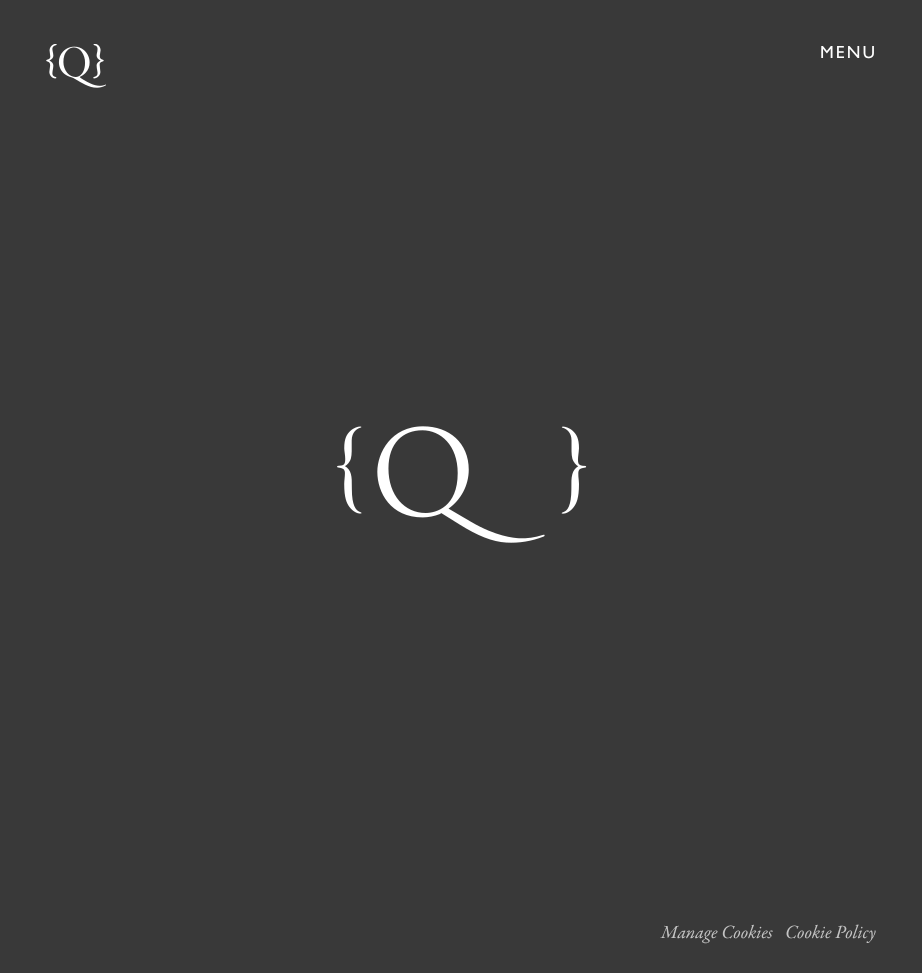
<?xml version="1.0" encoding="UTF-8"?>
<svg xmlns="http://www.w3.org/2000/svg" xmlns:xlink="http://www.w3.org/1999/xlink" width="922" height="973">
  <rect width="100%" height="100%" fill="#393939" />
  <image x="46" y="44" width="60" height="44" xlink:href="image1.png" />
  <image x="337" y="426" width="250" height="117" xlink:href="image2.png" />
  <text x="820" y="58" style="font-family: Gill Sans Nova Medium; font-size: 17.5px; font-weight: 500; letter-spacing: 2px; fill: #ffffff">MENU</text>
  <text x="661" y="938" style="font-family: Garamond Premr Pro; font-size: 18.75px; font-style: italic; fill: #c4c4c4">Manage Cookies</text>
  <text x="785" y="938" style="font-family: Garamond Premr Pro; font-size: 18.75px; font-style: italic; fill: #c4c4c4">Cookie Policy</text>
</svg>
